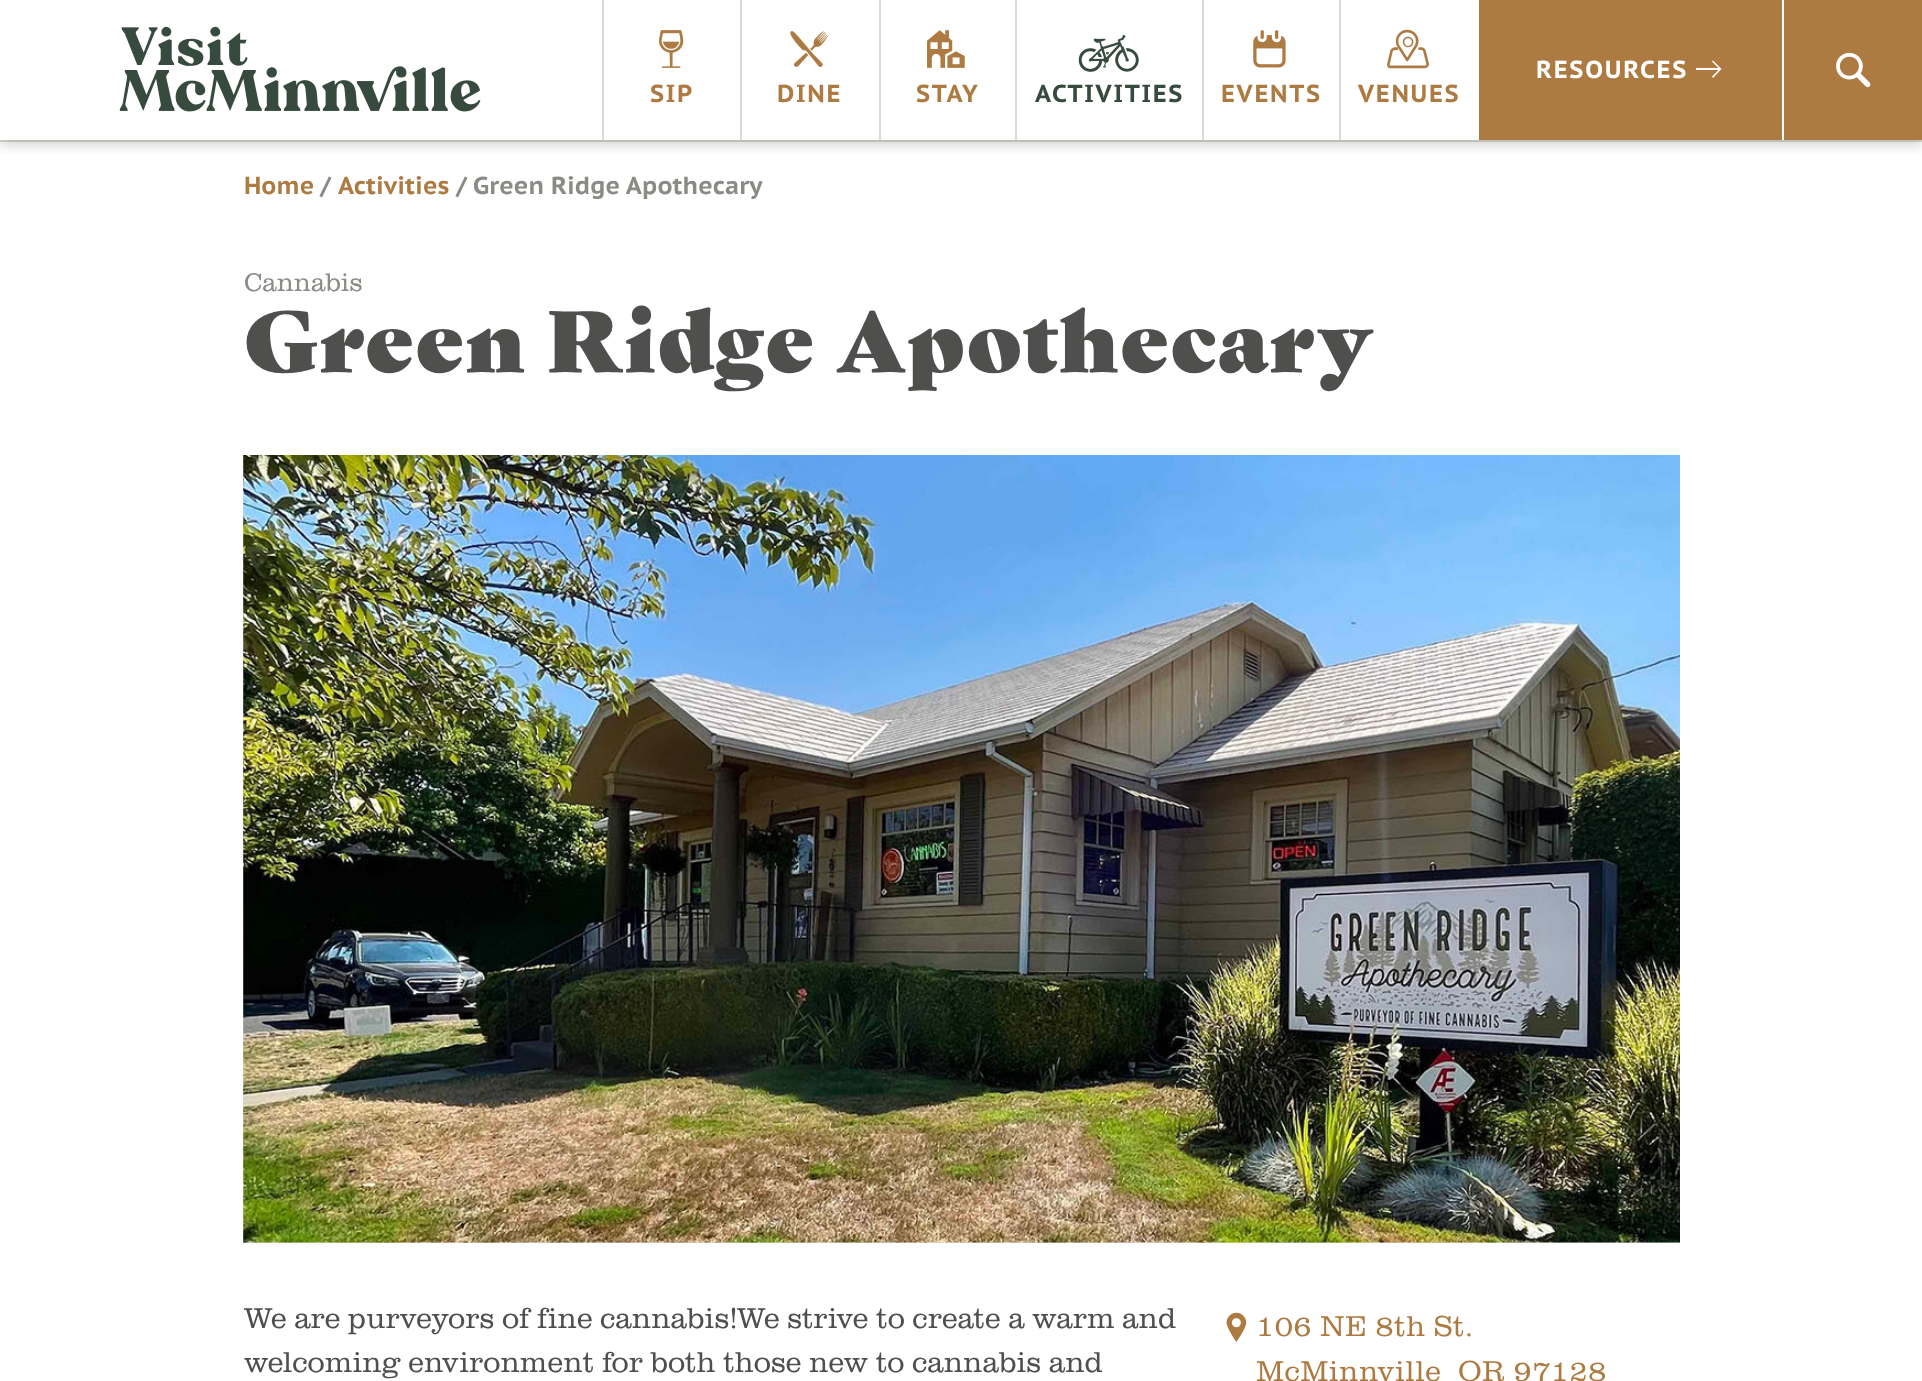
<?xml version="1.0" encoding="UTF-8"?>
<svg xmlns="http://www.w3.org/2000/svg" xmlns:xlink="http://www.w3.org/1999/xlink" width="1922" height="1381">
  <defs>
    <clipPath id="clip1"><rect x="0" y="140" width="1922" height="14" /></clipPath>
  </defs>
  <rect width="100%" height="100%" fill="#ffffff" />
  <rect y="140" width="1922" height="2" fill="#dddad3" />
  <g clip-path="url(#clip1)">
    <rect y="4" width="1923" height="140" fill="#333333" fill-opacity="0.25" filter="blur(7px)" />
  </g>
  <image x="119" y="26" width="362" height="86" xlink:href="image1.png" />
  <rect x="1479" width="303" height="140" fill="#ad7b42" />
  <path d="M 1713 60.5 l -1 1 l 6.5 6.5 h -22.5 v 2 h 22.5 l -6.5 6.5 l 1 1.5 l 8.5 -9 z" fill="#ffffff" />
  <rect x="1784" width="138" height="140" fill="#ad7b42" />
  <image x="1836" y="52" width="35" height="36" xlink:href="image2.png" />
  <rect x="602" width="2" height="140" fill="#dddad3" />
  <image x="659" y="30" width="25" height="38" xlink:href="image3.png" />
  <rect x="740" width="2" height="140" fill="#dddad3" />
  <image x="790" y="31" width="38" height="36" xlink:href="image4.png" />
  <rect x="879" width="2" height="140" fill="#dddad3" />
  <image x="927" y="30" width="38" height="38" xlink:href="image5.png" />
  <rect x="1015" width="2" height="140" fill="#dddad3" />
  <image x="1078" y="35" width="61" height="37" xlink:href="image6.png" />
  <rect x="1202" width="2" height="140" fill="#dddad3" />
  <image x="1253" y="30" width="33" height="38" xlink:href="image7.png" />
  <rect x="1339" width="2" height="140" fill="#dddad3" />
  <image x="1387" y="29" width="42" height="40" xlink:href="image8.png" />
  <rect x="243" y="455" width="1437" height="788" fill="#dddad3" />
  <image x="243" y="455" width="1437" height="788" xlink:href="image9.png" />
  <image x="1226" y="1312" width="21" height="30" xlink:href="image10.png" />
  <text x="1536" y="78" style="font-family: PT Sans Caption; font-size: 24.5px; font-weight: bold; letter-spacing: 1.75px; fill: #ffffff">RESOURCES</text>
  <text x="650" y="102" style="font-family: PT Sans Caption; font-size: 24.5px; font-weight: bold; letter-spacing: 1.75px; fill: #ad7b42">SIP</text>
  <text x="777" y="102" style="font-family: PT Sans Caption; font-size: 24.5px; font-weight: bold; letter-spacing: 1.75px; fill: #ad7b42">DINE</text>
  <text x="916" y="102" style="font-family: PT Sans Caption; font-size: 24.5px; font-weight: bold; letter-spacing: 1.75px; fill: #ad7b42">STAY</text>
  <text x="1035" y="102" style="font-family: PT Sans Caption; font-size: 24.5px; font-weight: bold; letter-spacing: 1.75px; fill: #364a3d">ACTIVITIES</text>
  <text x="1221" y="102" style="font-family: PT Sans Caption; font-size: 24.5px; font-weight: bold; letter-spacing: 1.75px; fill: #ad7b42">EVENTS</text>
  <text x="1358" y="102" style="font-family: PT Sans Caption; font-size: 24.5px; font-weight: bold; letter-spacing: 1.75px; fill: #ad7b42">VENUES</text>
  <text x="244" y="194" style="font-family: PT Sans Caption; font-size: 24.5px; font-weight: bold; letter-spacing: 0.07px; fill: #ad7b42">Home</text>
  <text x="320" y="194" style="font-family: PT Sans Caption; font-size: 24.5px; font-weight: bold; letter-spacing: 0.07px; fill: #8c8a85">/</text>
  <text x="338" y="194" style="font-family: PT Sans Caption; font-size: 24.5px; font-weight: bold; letter-spacing: 0.07px; fill: #ad7b42">Activities</text>
  <text x="456" y="194" style="font-family: PT Sans Caption; font-size: 24.5px; font-weight: bold; letter-spacing: 0.07px; fill: #8c8a85">/</text>
  <text x="473" y="194" style="font-family: PT Sans Caption; font-size: 24.5px; font-weight: bold; letter-spacing: 0.07px; fill: #8c8a85">Green Ridge Apothecary</text>
  <text x="244" y="291" style="font-family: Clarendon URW; font-size: 26.25px; font-weight: 300; fill: #8c8a85">Cannabis</text>
  <text x="244" y="372" style="font-family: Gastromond; font-size: 84px; letter-spacing: 1.75px; fill: #4f4f4e">Green Ridge Apothecary</text>
  <text x="244" y="1328" style="font-family: Clarendon URW; font-size: 29.75px; font-weight: 300; letter-spacing: 0.07px; fill: #4f4f4e">We are purveyors of fine cannabis!We strive to create a warm and</text>
  <text x="244" y="1372" style="font-family: Clarendon URW; font-size: 29.75px; font-weight: 300; letter-spacing: 0.07px; fill: #4f4f4e">welcoming environment for both those new to cannabis and</text>
  <text x="1256" y="1336" style="font-family: Clarendon URW; font-size: 29.75px; font-weight: 300; letter-spacing: 0.5px; fill: #ad7b42">106 NE 8th St.</text>
  <text x="1256" y="1381" style="font-family: Clarendon URW; font-size: 29.75px; font-weight: 300; letter-spacing: 0.5px; fill: #ad7b42">McMinnville</text>
  <text x="1458" y="1381" style="font-family: Clarendon URW; font-size: 29.75px; font-weight: 300; letter-spacing: 0.5px; fill: #ad7b42">OR 97128</text>
</svg>
